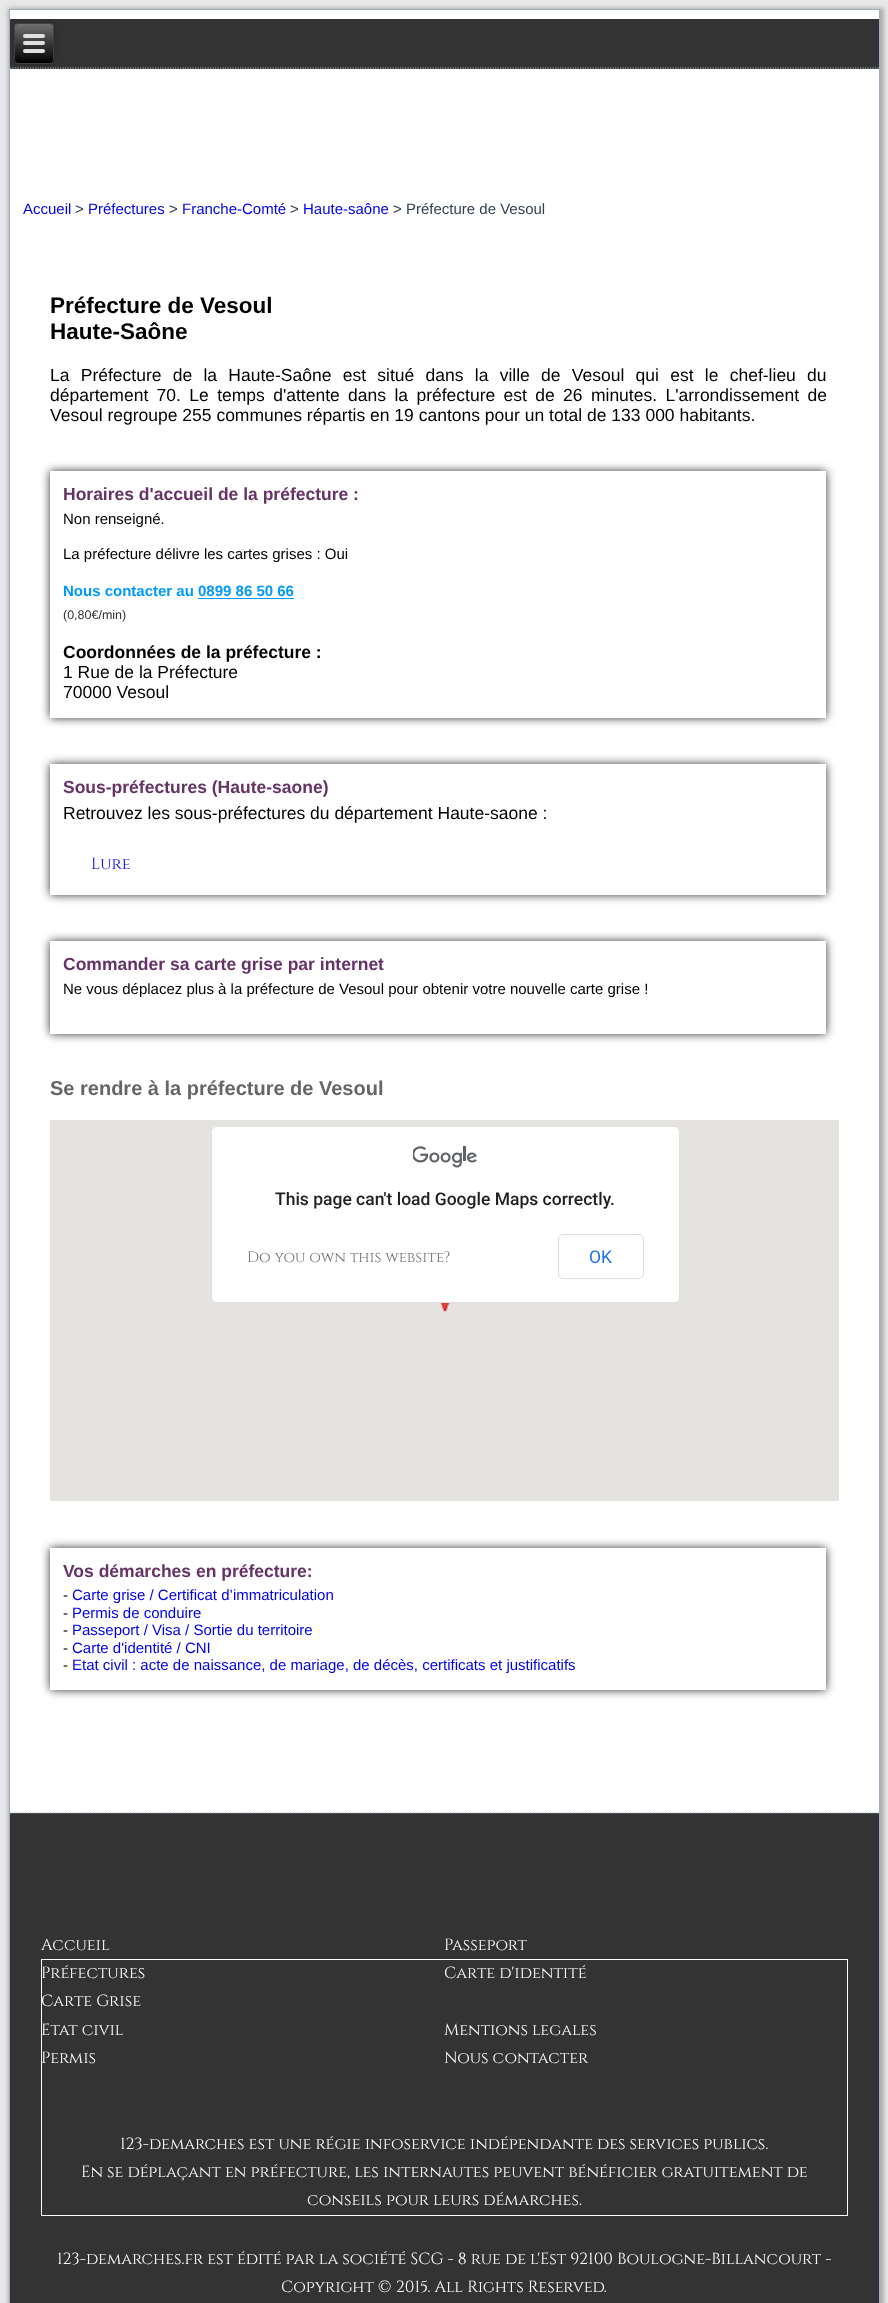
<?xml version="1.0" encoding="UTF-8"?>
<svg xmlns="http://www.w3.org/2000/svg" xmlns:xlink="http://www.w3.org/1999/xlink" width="888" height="2303">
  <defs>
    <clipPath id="clip1"><rect x="14" y="23" width="40" height="41" rx="4" /></clipPath>
    <linearGradient id="g1" gradientUnits="userSpaceOnUse" x1="34" y1="24" x2="34" y2="63"><stop offset="0" stop-color="#707070" /><stop offset="1" stop-color="#000000" /></linearGradient>
    <clipPath id="clip2"><path d="M 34 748 h 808 v 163 h -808 z m 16 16 h 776 v 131 h -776 z" clip-rule="evenodd" /></clipPath>
    <clipPath id="clip3"><path d="M 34 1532 h 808 v 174 h -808 z m 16 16 h 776 v 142 h -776 z" clip-rule="evenodd" /></clipPath>
  </defs>
  <rect width="100%" height="100%" fill="#e8e8e8" />
  <rect x="8" y="8" width="876" height="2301" fill="#000000" fill-opacity="0.25" filter="blur(2px)" />
  <rect x="10" y="10" width="869" height="1803" fill="#ffffff" />
  <rect x="9.5" y="9.5" width="870" height="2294" fill="none" stroke="#9cafc4" />
  <rect x="10" y="19" width="869" height="50" fill="#333333" />
  <path d="M 10 68 h 869" fill="none" stroke="#a3b4c8" stroke-width="1.2" stroke-dasharray="1.25 1.25" />
  <rect x="14" y="23" width="40" height="41" rx="4" fill="#000000" fill-opacity="0.2" filter="blur(2px)" />
  <g clip-path="url(#clip1)">
    <rect x="14" y="24" width="40" height="39" fill="url(#g1)" />
  </g>
  <rect x="14.5" y="23.5" width="39" height="40" rx="3.5" fill="none" stroke="#404040" />
  <rect x="23" y="34" width="22" height="4" rx="2" fill="#e0e0e0" />
  <rect x="23" y="41" width="22" height="4" rx="2" fill="#e0e0e0" />
  <rect x="23" y="49" width="22" height="4" rx="2" fill="#e0e0e0" />
  <rect x="50" y="471" width="776" height="247" fill="#000000" fill-opacity="0.8" filter="blur(5px)" />
  <rect x="50" y="471" width="776" height="247" fill="#ffffff" />
  <rect x="198" y="598" width="96" height="1" fill="#0099ff" />
  <g clip-path="url(#clip2)">
    <rect x="50" y="764" width="776" height="131" fill="#000000" fill-opacity="0.8" filter="blur(5px)" />
  </g>
  <rect x="50" y="941" width="776" height="93" fill="#000000" fill-opacity="0.8" filter="blur(5px)" />
  <rect x="50" y="941" width="776" height="93" fill="#ffffff" />
  <rect x="50" y="1120" width="789" height="381" fill="#e5e3df" />
  <image x="440" y="1303" width="10" height="9" xlink:href="image1.png" />
  <rect x="211" y="1126" width="469" height="177" rx="6" fill="#ffffff" />
  <rect x="211.5" y="1126.5" width="468" height="176" rx="5.5" fill="none" stroke="#000000" stroke-opacity="0.12" />
  <image x="413" y="1146" width="64" height="22" xlink:href="image2.png" />
  <rect x="558.5" y="1234.5" width="85" height="44" rx="4.5" fill="none" stroke="#dadce0" />
  <g clip-path="url(#clip3)">
    <rect x="50" y="1548" width="776" height="142" fill="#000000" fill-opacity="0.8" filter="blur(5px)" />
  </g>
  <rect x="10" y="1813" width="869" height="490" fill="#333333" />
  <path d="M 10 1813 h 869" fill="none" stroke="#9cafc4" stroke-width="1.2" stroke-dasharray="1.25 1.25" />
  <rect x="41.5" y="1959.5" width="806" height="256" fill="none" stroke="#ffffff" />
  <text x="23" y="214" style="font-family: Liberation Sans; font-size: 15px; fill: #0000ee">Accueil</text>
  <text x="75" y="214" style="font-family: Liberation Sans; font-size: 15px; fill: #303f50">&gt;</text>
  <text x="88" y="214" style="font-family: Liberation Sans; font-size: 15px; fill: #0000ee">Préfectures</text>
  <text x="169" y="214" style="font-family: Liberation Sans; font-size: 15px; fill: #303f50">&gt;</text>
  <text x="182" y="214" style="font-family: Liberation Sans; font-size: 15px; fill: #0000ee">Franche-Comté</text>
  <text x="290" y="214" style="font-family: Liberation Sans; font-size: 15px; fill: #303f50">&gt;</text>
  <text x="303" y="214" style="font-family: Liberation Sans; font-size: 15px; fill: #0000ee">Haute-saône</text>
  <text x="393" y="214" style="font-family: Liberation Sans; font-size: 15px; fill: #303f50">&gt; Préfecture de Vesoul</text>
  <text x="50" y="313" style="font-family: Liberation Sans; font-size: 22.5px; font-weight: bold; fill: #000000">Préfecture de Vesoul</text>
  <text x="50" y="339" style="font-family: Liberation Sans; font-size: 22.5px; font-weight: bold; fill: #000000">Haute-Saône</text>
  <text x="50" y="381" word-spacing="6.4" style="font-family: Liberation Sans; font-size: 17.5px; fill: #000000">La Préfecture de la Haute-Saône est situé dans la ville de Vesoul qui est le chef-lieu du</text>
  <text x="50" y="401" word-spacing="3.5" style="font-family: Liberation Sans; font-size: 17.5px; fill: #000000">département 70. Le temps d'attente dans la préfecture est de 26 minutes. L'arrondissement de</text>
  <text x="50" y="421" style="font-family: Liberation Sans; font-size: 17.5px; fill: #000000">Vesoul regroupe 255 communes répartis en 19 cantons pour un total de 133 000 habitants.</text>
  <text x="63" y="500" style="font-family: Liberation Sans; font-size: 17.5px; font-weight: bold; fill: #663366">Horaires d'accueil de la préfecture :</text>
  <text x="63" y="524" style="font-family: Liberation Sans; font-size: 15px; fill: #000000">Non renseigné.</text>
  <text x="63" y="559" style="font-family: Liberation Sans; font-size: 15px; fill: #000000">La préfecture délivre les cartes grises : Oui</text>
  <text x="63" y="596" style="font-family: Liberation Sans; font-size: 15px; font-weight: bold; fill: #0099ff">Nous contacter au 0899 86 50 66</text>
  <text x="63" y="619" style="font-family: Liberation Sans; font-size: 12.5px; fill: #333333">(0,80€/min)</text>
  <text x="63" y="658" style="font-family: Liberation Sans; font-size: 17.5px; font-weight: bold; fill: #000000">Coordonnées de la préfecture :</text>
  <text x="63" y="678" style="font-family: Liberation Sans; font-size: 17.5px; fill: #000000">1 Rue de la Préfecture</text>
  <text x="63" y="698" style="font-family: Liberation Sans; font-size: 17.5px; fill: #000000">70000 Vesoul</text>
  <text x="63" y="793" style="font-family: Liberation Sans; font-size: 17.5px; font-weight: bold; fill: #663366">Sous-préfectures (Haute-saone)</text>
  <text x="63" y="819" style="font-family: Liberation Sans; font-size: 17.5px; fill: #000000">Retrouvez les sous-préfectures du département Haute-saone :</text>
  <text x="91" y="869" style="font-family: Cinzel; font-size: 16.25px; fill: #0000ee">Lure</text>
  <text x="63" y="970" style="font-family: Liberation Sans; font-size: 17.5px; font-weight: bold; fill: #663366">Commander sa carte grise par internet</text>
  <text x="63" y="994" style="font-family: Liberation Sans; font-size: 15px; fill: #000000">Ne vous déplacez plus à la préfecture de Vesoul pour obtenir votre nouvelle carte grise !</text>
  <text x="50" y="1095" style="font-family: Liberation Sans; font-size: 20px; font-weight: bold; fill: #666666">Se rendre à la préfecture de Vesoul</text>
  <text x="275" y="1205" style="font-family: Roboto; font-size: 17.5px; font-weight: 500; fill: #212121">This page can't load Google Maps correctly.</text>
  <text x="247" y="1262" style="font-family: Cinzel; font-size: 15px; fill: #757575">Do you own this website?</text>
  <text x="589" y="1263" style="font-family: Roboto; font-size: 17.5px; fill: #1a73e8">OK</text>
  <text x="63" y="1577" style="font-family: Liberation Sans; font-size: 17.5px; font-weight: bold; fill: #663366">Vos démarches en préfecture:</text>
  <text x="63" y="1600" style="font-family: Liberation Sans; font-size: 15px; fill: #000000">-</text>
  <text x="72" y="1600" style="font-family: Liberation Sans; font-size: 15px; fill: #0000ee">Carte grise / Certificat d’immatriculation</text>
  <text x="63" y="1618" style="font-family: Liberation Sans; font-size: 15px; fill: #000000">-</text>
  <text x="72" y="1618" style="font-family: Liberation Sans; font-size: 15px; fill: #0000ee">Permis de conduire</text>
  <text x="63" y="1635" style="font-family: Liberation Sans; font-size: 15px; fill: #000000">-</text>
  <text x="72" y="1635" style="font-family: Liberation Sans; font-size: 15px; fill: #0000ee">Passeport / Visa / Sortie du territoire</text>
  <text x="63" y="1653" style="font-family: Liberation Sans; font-size: 15px; fill: #000000">-</text>
  <text x="72" y="1653" style="font-family: Liberation Sans; font-size: 15px; fill: #0000ee">Carte d'identité / CNI</text>
  <text x="63" y="1670" style="font-family: Liberation Sans; font-size: 15px; fill: #000000">-</text>
  <text x="72" y="1670" style="font-family: Liberation Sans; font-size: 15px; fill: #0000ee">Etat civil : acte de naissance, de mariage, de décès, certificats et justificatifs</text>
  <text x="41" y="1950" style="font-family: Cinzel; font-size: 16.25px; fill: #ffffff">Accueil</text>
  <text x="41" y="1978" style="font-family: Cinzel; font-size: 16.25px; fill: #ffffff">Préfectures</text>
  <text x="41" y="2006" style="font-family: Cinzel; font-size: 16.25px; fill: #ffffff">Carte Grise</text>
  <text x="41" y="2035" style="font-family: Cinzel; font-size: 16.25px; fill: #ffffff">Etat civil</text>
  <text x="41" y="2063" style="font-family: Cinzel; font-size: 16.25px; fill: #ffffff">Permis</text>
  <text x="444" y="1950" style="font-family: Cinzel; font-size: 16.25px; fill: #ffffff">Passeport</text>
  <text x="444" y="1978" style="font-family: Cinzel; font-size: 16.25px; fill: #ffffff">Carte d'identité</text>
  <text x="444" y="2035" style="font-family: Cinzel; font-size: 16.25px; fill: #ffffff">Mentions legales</text>
  <text x="444" y="2063" style="font-family: Cinzel; font-size: 16.25px; fill: #ffffff">Nous contacter</text>
  <text x="120" y="2149" style="font-family: Cinzel; font-size: 16.25px; fill: #ffffff">123-demarches est une régie infoservice indépendante des services publics.</text>
  <text x="81" y="2177" style="font-family: Cinzel; font-size: 16.25px; fill: #ffffff">En se déplaçant en préfecture, les internautes peuvent bénéficier gratuitement de</text>
  <text x="307" y="2205" style="font-family: Cinzel; font-size: 16.25px; fill: #ffffff">conseils pour leurs démarches.</text>
  <text x="57" y="2264" style="font-family: Cinzel; font-size: 16.25px; fill: #ffffff">123-demarches.fr est édité par la société SCG - 8 rue de l'Est 92100 Boulogne-Billancourt -</text>
  <text x="281" y="2292" style="font-family: Cinzel; font-size: 16.25px; fill: #ffffff">Copyright © 2015. All Rights Reserved.</text>
</svg>
